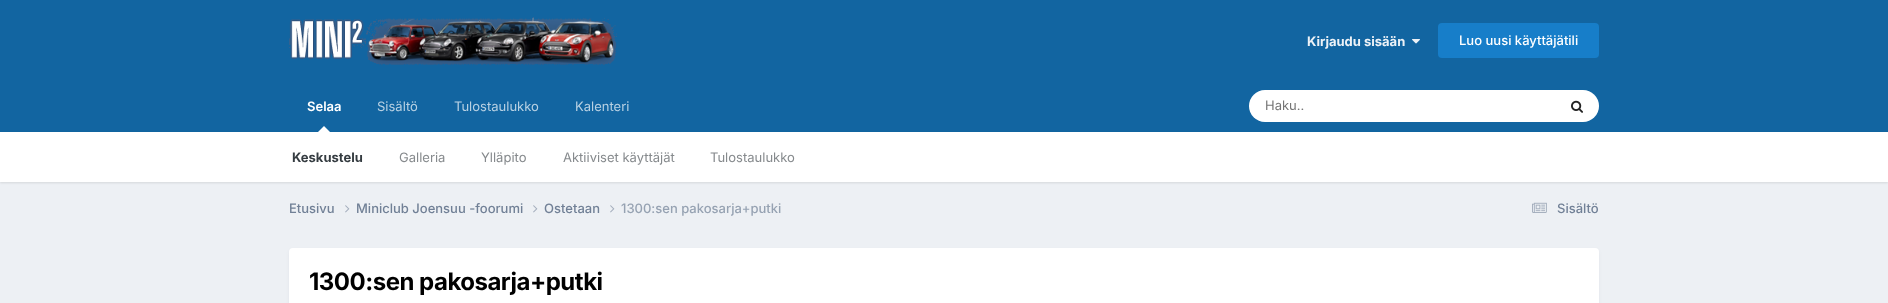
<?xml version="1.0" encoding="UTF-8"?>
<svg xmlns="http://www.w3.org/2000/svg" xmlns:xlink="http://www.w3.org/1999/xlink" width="1888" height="303">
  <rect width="100%" height="100%" fill="#edf0f4" />
  <rect width="1888" height="132" fill="#1265a1" />
  <image x="289" y="17" width="328" height="48" xlink:href="image1.png" />
  <image x="1412" y="39" width="8" height="5" xlink:href="image2.png" />
  <rect x="1438" y="23" width="161" height="35" rx="4" fill="#177ec9" />
  <rect y="133" width="1888" height="50" fill="#000000" fill-opacity="0.1" filter="blur(1px)" />
  <path d="M 330 132 h -12 l 6 -6 z" fill="#ffffff" />
  <rect x="1249" y="90" width="350" height="32" rx="16" fill="#ffffff" />
  <image x="1571" y="100" width="12" height="13" xlink:href="image3.png" />
  <rect y="132" width="1888" height="50" fill="#ffffff" />
  <image x="345" y="205" width="5" height="8" xlink:href="image4.png" />
  <image x="533" y="205" width="5" height="8" xlink:href="image4.png" />
  <image x="610" y="205" width="5" height="8" xlink:href="image4.png" />
  <image x="1532" y="202" width="15" height="11" xlink:href="image5.png" />
  <rect x="290" y="251" width="1308" height="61" rx="3" fill="#2d3748" fill-opacity="0.1" filter="blur(2px)" />
  <rect x="289" y="248" width="1310" height="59" rx="4" fill="#ffffff" />
  <text x="1307" y="46" style="font-family: Inter; font-size: 13px; font-weight: bold; fill: #edf2f7">Kirjaudu sisään</text>
  <text x="1459" y="45" style="font-family: Inter; font-size: 13px; font-weight: 500; fill: #ffffff">Luo uusi käyttäjätili</text>
  <text x="307" y="111" style="font-family: Inter; font-size: 13px; font-weight: 600; fill: #ffffff">Selaa</text>
  <text x="292" y="162" style="font-family: Inter; font-size: 13px; font-weight: bold; fill: #353c41">Keskustelu</text>
  <text x="399" y="162" style="font-family: Inter; font-size: 13px; fill: #868a8d">Galleria</text>
  <text x="481" y="162" style="font-family: Inter; font-size: 13px; fill: #868a8d">Ylläpito</text>
  <text x="563" y="162" style="font-family: Inter; font-size: 13px; fill: #868a8d">Aktiiviset käyttäjät</text>
  <text x="710" y="162" style="font-family: Inter; font-size: 13px; fill: #868a8d">Tulostaulukko</text>
  <text x="377" y="111" style="font-family: Inter; font-size: 13px; fill: #b8d1e3">Sisältö</text>
  <text x="454" y="111" style="font-family: Inter; font-size: 13px; fill: #b8d1e3">Tulostaulukko</text>
  <text x="575" y="111" style="font-family: Inter; font-size: 13px; fill: #b8d1e3">Kalenteri</text>
  <text x="1265" y="110" style="font-family: Inter; font-size: 13px; fill: #757575">Haku..</text>
  <text x="289" y="213" style="font-family: Inter; font-size: 13px; font-weight: 500; fill: #718096">Etusivu</text>
  <text x="356" y="213" style="font-family: Inter; font-size: 13px; font-weight: 500; fill: #718096">Miniclub Joensuu -foorumi</text>
  <text x="544" y="213" style="font-family: Inter; font-size: 13px; font-weight: 500; fill: #718096">Ostetaan</text>
  <text x="621" y="213" style="font-family: Inter; font-size: 13px; font-weight: 500; fill: #96a2b2">1300:sen pakosarja+putki</text>
  <text x="1557" y="213" style="font-family: Inter; font-size: 13px; font-weight: 500; fill: #718096">Sisältö</text>
  <text x="309" y="290" style="font-family: Inter; font-size: 24px; font-weight: bold; letter-spacing: -0.5px; fill: #000000">1300:sen pakosarja+putki</text>
</svg>
